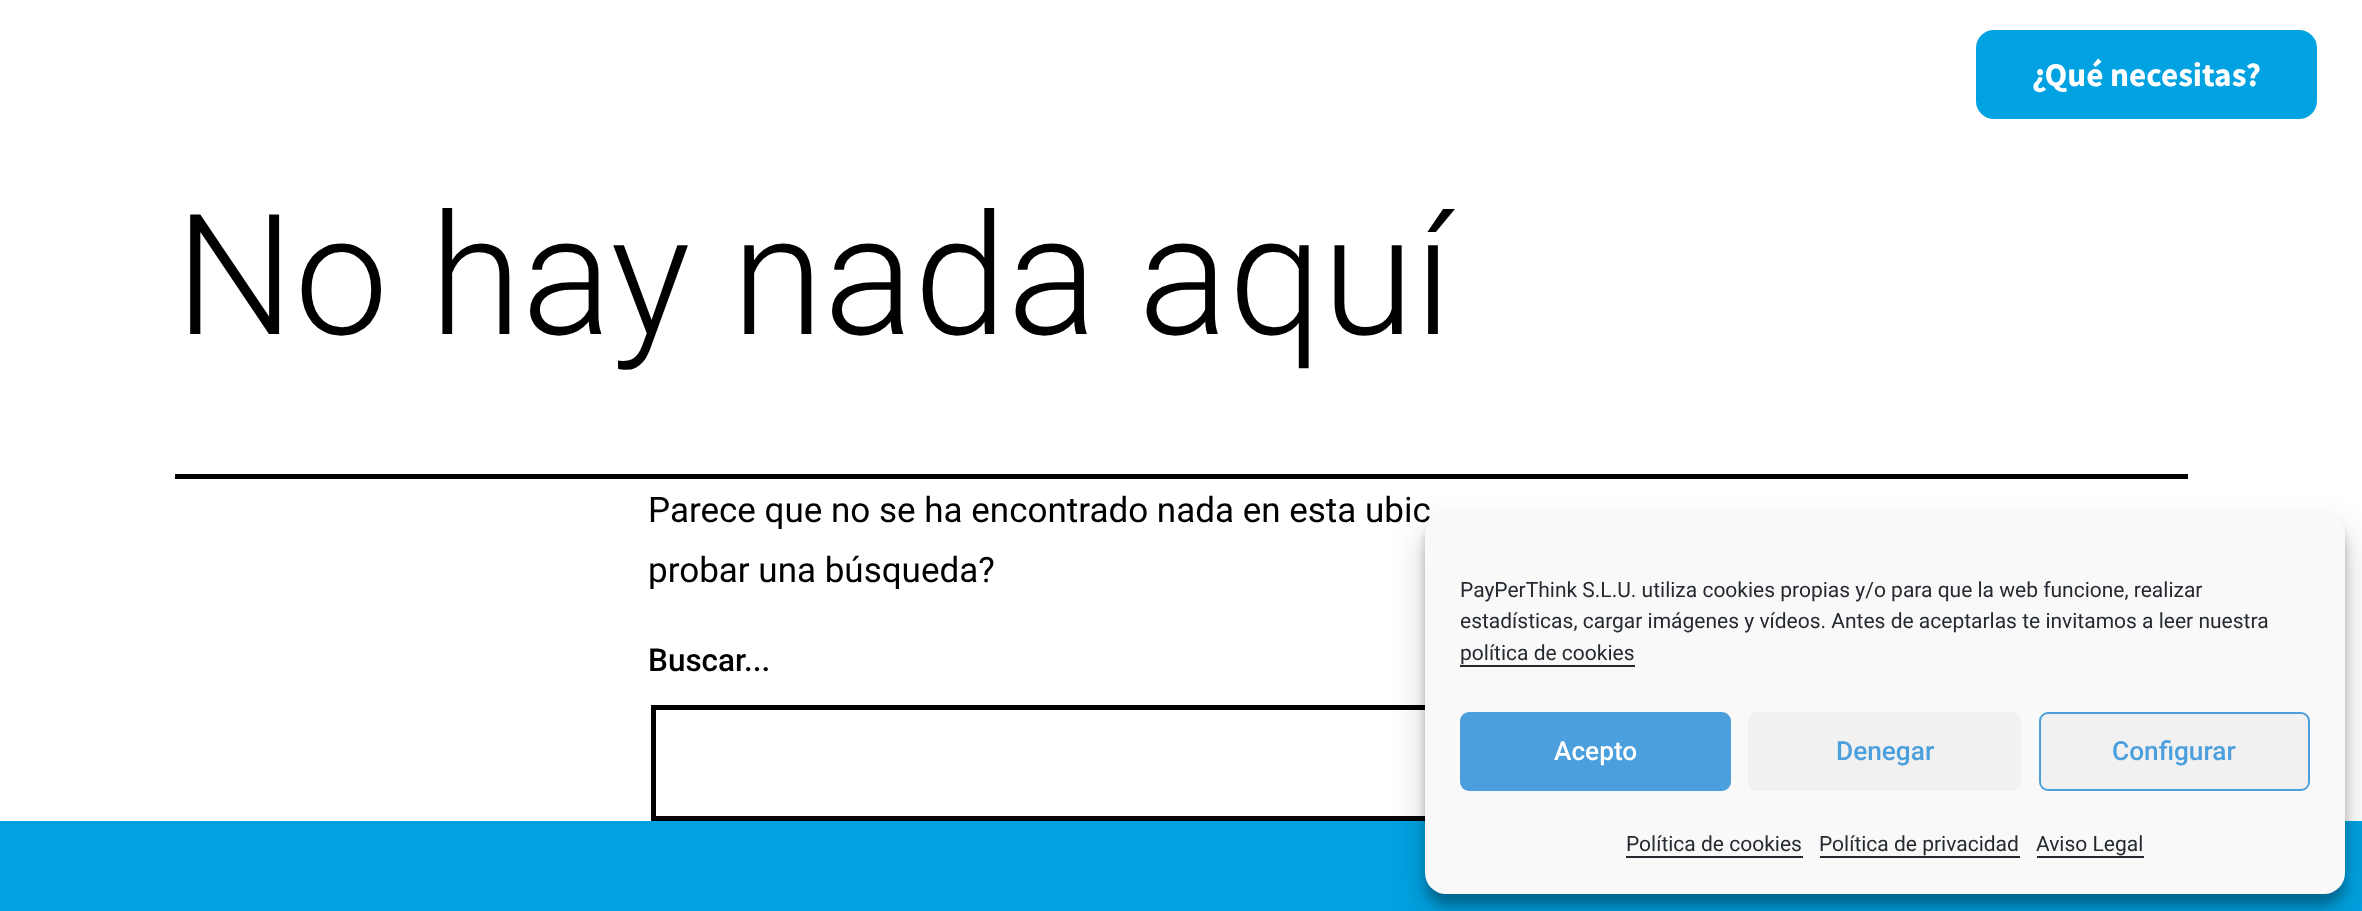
<?xml version="1.0" encoding="UTF-8"?>
<svg xmlns="http://www.w3.org/2000/svg" xmlns:xlink="http://www.w3.org/1999/xlink" width="2362" height="911">
  <rect width="100%" height="100%" fill="#ffffff" />
  <rect x="1976" y="30" width="341" height="89" rx="18" fill="#00a2e1" />
  <rect x="175" y="474" width="2013" height="5" fill="#000000" />
  <rect x="653.5" y="707.5" width="788" height="111" fill="none" stroke="#000000" stroke-width="5" />
  <rect y="821" width="2362" height="90" fill="#00a2e1" />
  <rect x="1425" y="523" width="920" height="382" rx="21" fill="#000000" fill-opacity="0.23" filter="blur(5px)" />
  <rect x="1425" y="530" width="920" height="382" rx="21" fill="#000000" fill-opacity="0.19" filter="blur(17.5px)" />
  <text x="2032" y="86" style="font-family: Source Sans Pro; font-size: 33.25px; font-weight: bold; fill: #ffffff">¿Qué necesitas?</text>
  <text x="175" y="334" style="font-family: Roboto; font-size: 168px; font-weight: 300; fill: #000000">No hay nada aquí</text>
  <text x="648" y="522" style="font-family: Roboto; font-size: 35px; fill: #000000">Parece que no se ha encontrado nada en esta ubic</text>
  <text x="648" y="582" style="font-family: Roboto; font-size: 35px; fill: #000000">probar una búsqueda?</text>
  <text x="648" y="671" style="font-family: Roboto; font-size: 31.5px; font-weight: 500; fill: #000000">Buscar...</text>
  <rect x="1425" y="513" width="920" height="381" rx="21" fill="#f9f9f9" />
  <text x="1460" y="597" style="font-family: Roboto; font-size: 21px; fill: #252930">PayPerThink S.L.U. utiliza cookies propias y/o para que la web funcione, realizar</text>
  <text x="1460" y="628" style="font-family: Roboto; font-size: 21px; fill: #252930">estadísticas, cargar imágenes y vídeos. Antes de aceptarlas te invitamos a leer nuestra</text>
  <text x="1460" y="660" style="font-family: Roboto; font-size: 21px; fill: #252930">política de cookies</text>
  <rect x="1460" y="665" width="175" height="2" fill="#252930" />
  <rect x="1461" y="713" width="269" height="77" rx="8" fill="#4a9fdc" stroke="#4a9fdc" stroke-width="2" />
  <text x="1554" y="760" style="font-family: Roboto; font-size: 26.25px; font-weight: 500; fill: #ffffff">Acepto</text>
  <rect x="1748" y="712" width="273" height="79" rx="9" fill="#f1f1f1" />
  <text x="1836" y="760" style="font-family: Roboto; font-size: 26.25px; font-weight: 500; fill: #4a9fdc">Denegar</text>
  <rect x="2040" y="713" width="269" height="77" rx="8" fill="#f1f1f1" stroke="#4a9fdc" stroke-width="2" />
  <text x="2112" y="760" style="font-family: Roboto; font-size: 26.25px; font-weight: 500; fill: #4a9fdc">Configurar</text>
  <text x="1626" y="851" style="font-family: Roboto; font-size: 21px; fill: #252930">Política de cookies</text>
  <rect x="1626" y="856" width="177" height="2" fill="#252930" />
  <text x="1819" y="851" style="font-family: Roboto; font-size: 21px; fill: #252930">Política de privacidad</text>
  <rect x="1820" y="856" width="200" height="2" fill="#252930" />
  <text x="2036" y="851" style="font-family: Roboto; font-size: 21px; fill: #252930">Aviso Legal</text>
  <rect x="2037" y="856" width="107" height="2" fill="#252930" />
</svg>
